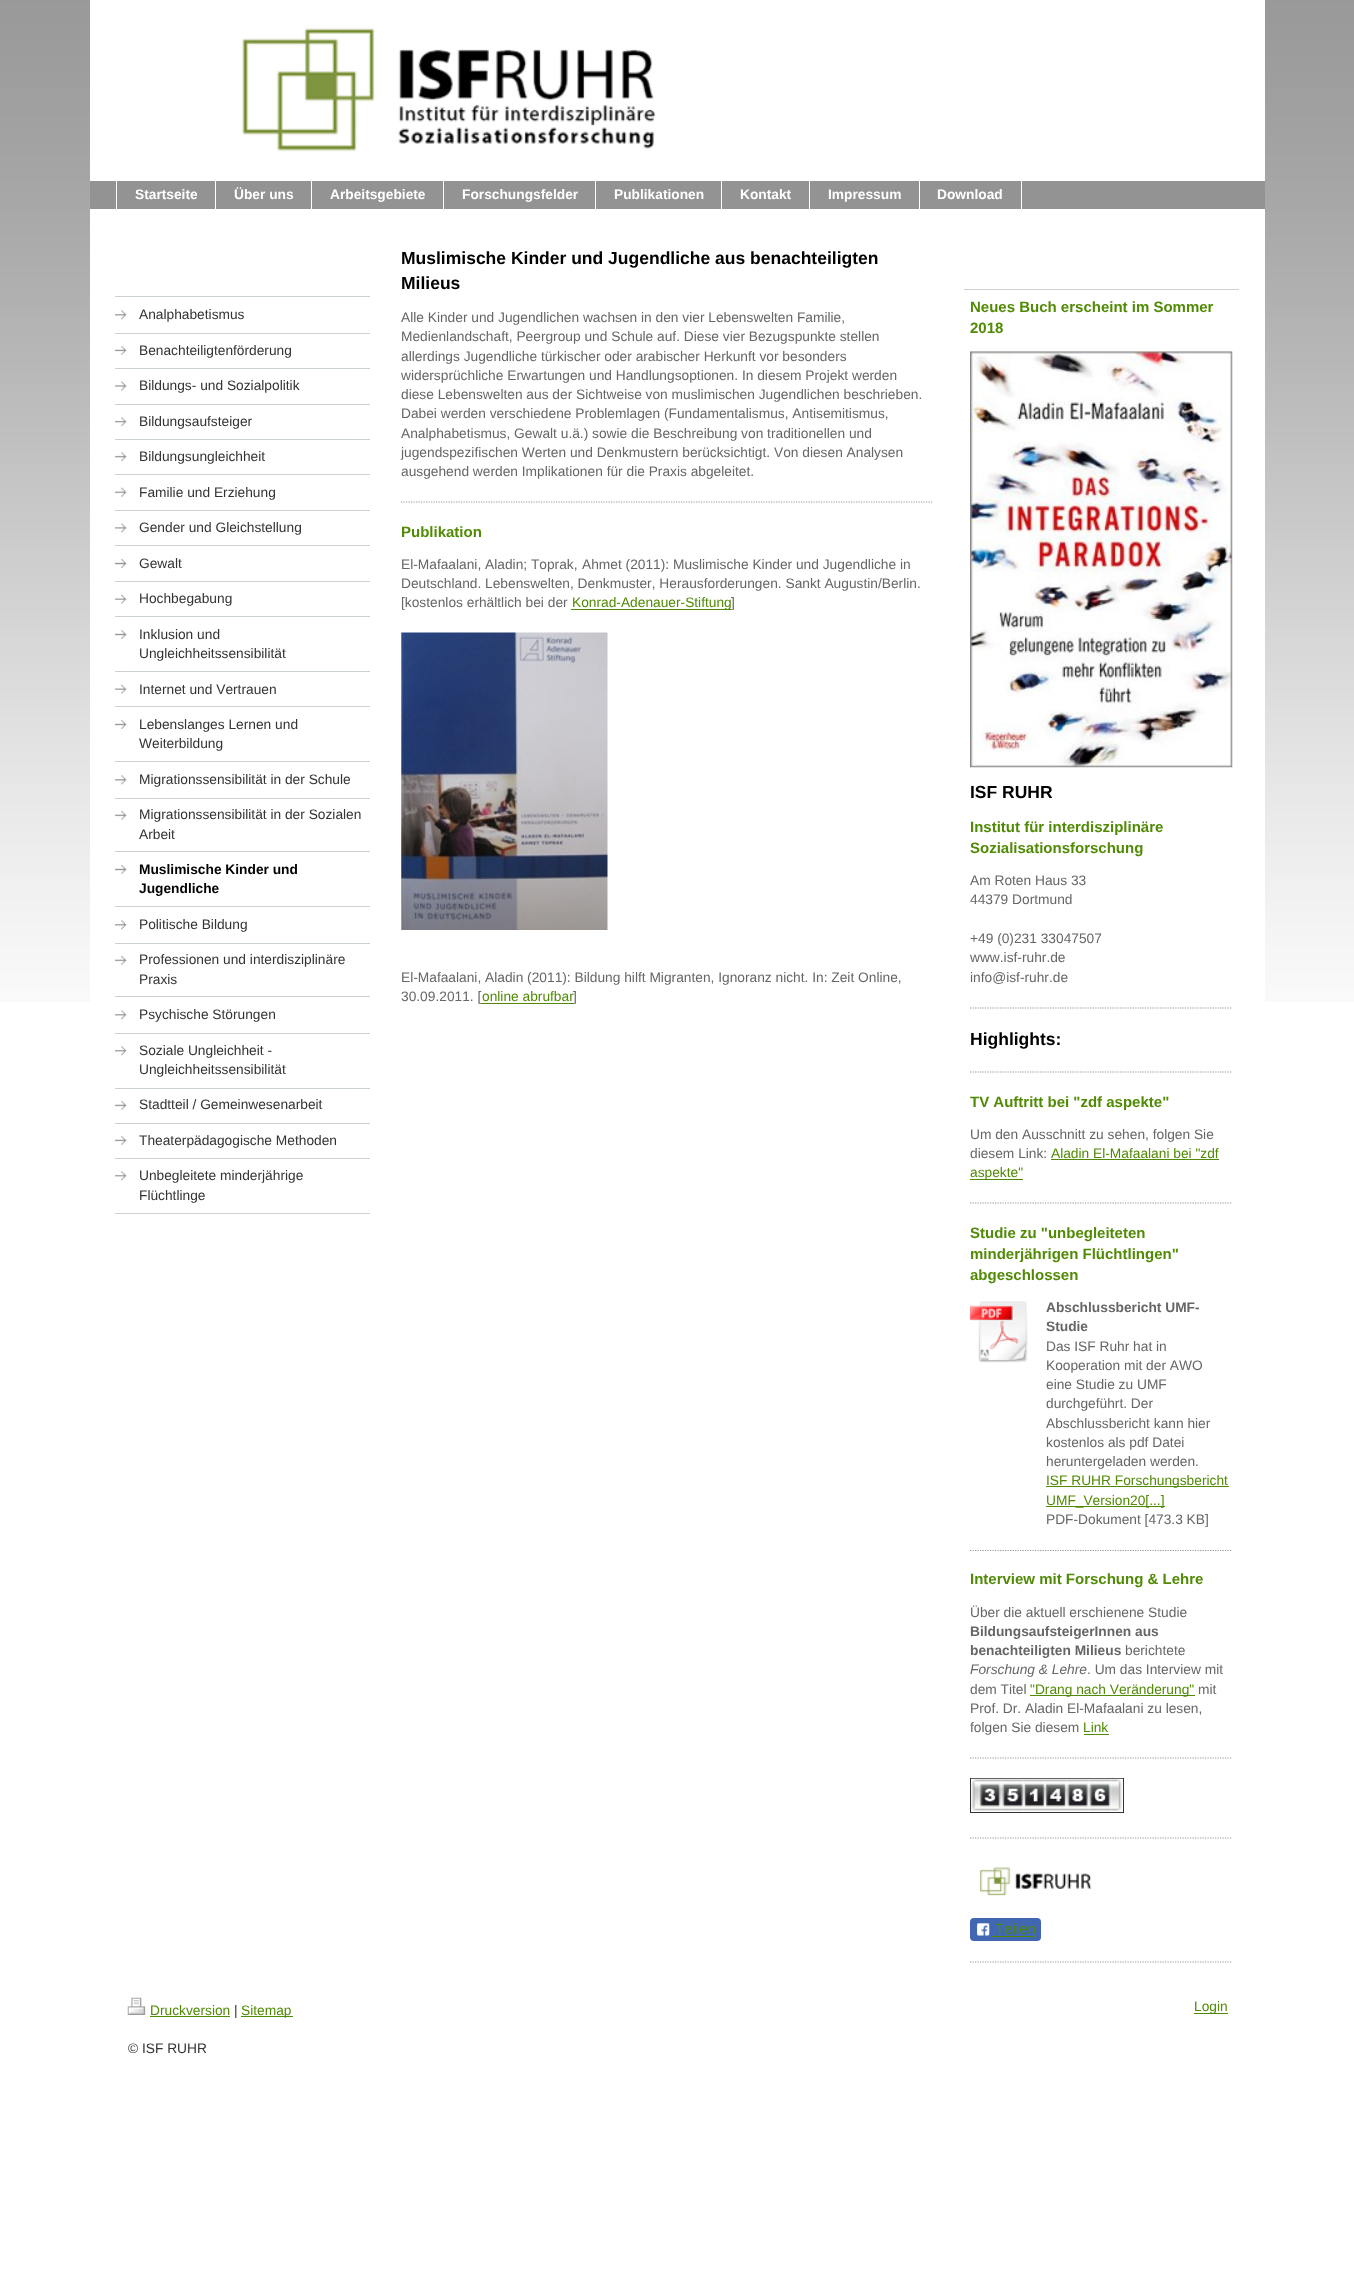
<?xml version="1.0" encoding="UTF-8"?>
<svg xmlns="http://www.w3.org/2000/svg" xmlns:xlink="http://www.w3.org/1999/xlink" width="1354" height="2276">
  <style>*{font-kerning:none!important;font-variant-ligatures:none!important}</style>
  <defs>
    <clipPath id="clip1"><rect x="128" y="1998" width="1100" height="61" /></clipPath>
  </defs>
  <rect width="100%" height="100%" fill="#ffffff" />
  <image x="0" y="0" width="1354" height="1002" xlink:href="image1.png" />
  <rect x="90" y="180" width="1175" height="822" fill="#ffffff" />
  <image x="90" y="0" width="1175" height="180" xlink:href="image2.png" />
  <rect x="90" y="181" width="1175" height="28" fill="#939393" />
  <rect x="116" y="180" width="1" height="29" fill="#ffffff" />
  <rect x="215" y="180" width="1" height="30" fill="#ffffff" />
  <rect x="311" y="180" width="1" height="30" fill="#ffffff" />
  <rect x="443" y="180" width="1" height="30" fill="#ffffff" />
  <rect x="595" y="180" width="1" height="30" fill="#ffffff" />
  <rect x="721" y="180" width="1" height="30" fill="#ffffff" />
  <rect x="809" y="180" width="1" height="30" fill="#ffffff" />
  <rect x="919" y="180" width="1" height="30" fill="#ffffff" />
  <rect x="1021" y="180" width="1" height="30" fill="#ffffff" />
  <rect x="115" y="296" width="255" height="1" fill="#cad1d5" />
  <image x="115" y="310" width="12" height="10" xlink:href="image3.png" />
  <image x="115" y="334" width="255" height="21" xlink:href="image4.png" />
  <rect x="115" y="333" width="255" height="1" fill="#cad1d5" />
  <image x="115" y="369" width="255" height="22" xlink:href="image5.png" />
  <rect x="115" y="368" width="255" height="1" fill="#cad1d5" />
  <rect x="115" y="404" width="255" height="1" fill="#cad1d5" />
  <image x="115" y="417" width="12" height="10" xlink:href="image6.png" />
  <rect x="115" y="439" width="255" height="1" fill="#cad1d5" />
  <image x="115" y="452" width="12" height="10" xlink:href="image6.png" />
  <rect x="115" y="474" width="255" height="1" fill="#cad1d5" />
  <image x="115" y="487" width="12" height="10" xlink:href="image7.png" />
  <rect x="115" y="510" width="255" height="1" fill="#cad1d5" />
  <image x="115" y="523" width="12" height="10" xlink:href="image8.png" />
  <rect x="115" y="545" width="255" height="1" fill="#cad1d5" />
  <image x="115" y="558" width="12" height="11" xlink:href="image9.png" />
  <rect x="115" y="581" width="255" height="1" fill="#cad1d5" />
  <image x="115" y="594" width="12" height="10" xlink:href="image10.png" />
  <rect x="115" y="616" width="255" height="1" fill="#cad1d5" />
  <image x="115" y="630" width="12" height="9" xlink:href="image11.png" />
  <rect x="115" y="671" width="255" height="1" fill="#cad1d5" />
  <image x="115" y="684" width="12" height="10" xlink:href="image10.png" />
  <rect x="115" y="706" width="255" height="1" fill="#cad1d5" />
  <image x="115" y="720" width="12" height="9" xlink:href="image11.png" />
  <rect x="115" y="761" width="255" height="1" fill="#cad1d5" />
  <image x="115" y="775" width="12" height="10" xlink:href="image3.png" />
  <image x="115" y="799" width="255" height="21" xlink:href="image12.png" />
  <rect x="115" y="798" width="255" height="1" fill="#cad1d5" />
  <rect x="115" y="851" width="255" height="1" fill="#cad1d5" />
  <image x="115" y="865" width="12" height="9" xlink:href="image11.png" />
  <rect x="115" y="906" width="255" height="1" fill="#cad1d5" />
  <image x="115" y="920" width="12" height="10" xlink:href="image3.png" />
  <image x="115" y="944" width="255" height="21" xlink:href="image12.png" />
  <rect x="115" y="943" width="255" height="1" fill="#cad1d5" />
  <rect x="115" y="996" width="255" height="1" fill="#cad1d5" />
  <image x="115" y="1010" width="12" height="10" xlink:href="image3.png" />
  <image x="115" y="1034" width="255" height="22" xlink:href="image13.png" />
  <rect x="115" y="1033" width="255" height="1" fill="#cad1d5" />
  <image x="115" y="1089" width="255" height="21" xlink:href="image4.png" />
  <rect x="115" y="1088" width="255" height="1" fill="#cad1d5" />
  <image x="115" y="1124" width="255" height="21" xlink:href="image4.png" />
  <rect x="115" y="1123" width="255" height="1" fill="#cad1d5" />
  <image x="115" y="1159" width="255" height="22" xlink:href="image13.png" />
  <rect x="115" y="1158" width="255" height="1" fill="#cad1d5" />
  <rect x="115" y="1213" width="255" height="1" fill="#cad1d5" />
  <path d="M 401 502 h 531.5" fill="none" stroke="#999999" stroke-width="1.2" stroke-dasharray="1.25 1.25" />
  <rect x="571" y="609" width="160" height="1" fill="#518a05" />
  <image x="401" y="632" width="207" height="298" xlink:href="image14.png" />
  <rect x="964" y="289" width="275" height="1" fill="#cad1d5" />
  <image x="970" y="351" width="263" height="417" xlink:href="image15.png" />
  <path d="M 970 1008 h 262.5" fill="none" stroke="#999999" stroke-width="1.2" stroke-dasharray="1.25 1.25" />
  <path d="M 970 1072 h 262.5" fill="none" stroke="#999999" stroke-width="1.2" stroke-dasharray="1.25 1.25" />
  <rect x="1051" y="1159" width="168" height="1" fill="#518a05" />
  <rect x="970" y="1179" width="53" height="1" fill="#518a05" />
  <path d="M 970 1203 h 262.5" fill="none" stroke="#999999" stroke-width="1.2" stroke-dasharray="1.25 1.25" />
  <image x="970" y="1301" width="58" height="62" xlink:href="image16.png" />
  <rect x="1046" y="1486" width="183" height="1" fill="#518a05" />
  <rect x="1046" y="1506" width="119" height="1" fill="#518a05" />
  <path d="M 970 1550.5 h 262.5" fill="none" stroke="#999999" stroke-width="1.2" stroke-dasharray="1.25 1.25" />
  <rect x="1030" y="1695" width="165" height="1" fill="#518a05" />
  <rect x="1084" y="1734" width="25" height="1" fill="#518a05" />
  <path d="M 970 1758 h 262.5" fill="none" stroke="#999999" stroke-width="1.2" stroke-dasharray="1.25 1.25" />
  <rect x="970.5" y="1778.5" width="153" height="34" fill="none" stroke="#333333" />
  <image x="971" y="1778" width="8" height="34" xlink:href="image17.png" />
  <image x="978" y="1778" width="24" height="34" xlink:href="image18.png" />
  <image x="1001" y="1778" width="23" height="34" xlink:href="image19.png" />
  <image x="1023" y="1778" width="22" height="34" xlink:href="image20.png" />
  <image x="1045" y="1778" width="22" height="34" xlink:href="image21.png" />
  <image x="1066" y="1778" width="23" height="34" xlink:href="image22.png" />
  <image x="1088" y="1778" width="24" height="34" xlink:href="image23.png" />
  <image x="1111" y="1778" width="12" height="34" xlink:href="image24.png" />
  <path d="M 970 1838 h 262.5" fill="none" stroke="#999999" stroke-width="1.2" stroke-dasharray="1.25 1.25" />
  <image x="979" y="1867" width="113" height="29" xlink:href="image25.png" />
  <rect x="970" y="1918" width="71" height="23" rx="4" fill="#4267b2" />
  <image x="977" y="1923" width="13" height="13" xlink:href="image26.png" />
  <rect x="991" y="1936" width="45" height="1" fill="#518a05" />
  <path d="M 970 1962 h 262.5" fill="none" stroke="#999999" stroke-width="1.2" stroke-dasharray="1.25 1.25" />
  <image x="127" y="1997" width="19" height="18" xlink:href="image27.png" />
  <rect x="150" y="2016" width="80" height="1" fill="#518a05" />
  <rect x="241" y="2016" width="52" height="1" fill="#518a05" />
  <rect x="1194" y="2013" width="34" height="1" fill="#518a05" />
  <text x="135" y="199" style="font-family: Liberation Sans; font-size: 13.75px; font-weight: bold; fill: #ffffff">Startseite</text>
  <text x="234" y="199" style="font-family: Liberation Sans; font-size: 13.75px; font-weight: bold; fill: #ffffff">Über uns</text>
  <text x="330" y="199" style="font-family: Liberation Sans; font-size: 13.75px; font-weight: bold; fill: #ffffff">Arbeitsgebiete</text>
  <text x="462" y="199" style="font-family: Liberation Sans; font-size: 13.75px; font-weight: bold; fill: #ffffff">Forschungsfelder</text>
  <text x="614" y="199" style="font-family: Liberation Sans; font-size: 13.75px; font-weight: bold; fill: #ffffff">Publikationen</text>
  <text x="740" y="199" style="font-family: Liberation Sans; font-size: 13.75px; font-weight: bold; fill: #ffffff">Kontakt</text>
  <text x="828" y="199" style="font-family: Liberation Sans; font-size: 13.75px; font-weight: bold; fill: #ffffff">Impressum</text>
  <text x="937" y="199" style="font-family: Liberation Sans; font-size: 13.75px; font-weight: bold; fill: #ffffff">Download</text>
  <text x="139" y="319" style="font-family: Liberation Sans; font-size: 13.75px; fill: #333333">Analphabetismus</text>
  <text x="139" y="355" style="font-family: Liberation Sans; font-size: 13.75px; fill: #333333">Benachteiligtenförderung</text>
  <text x="139" y="390" style="font-family: Liberation Sans; font-size: 13.75px; fill: #333333">Bildungs- und Sozialpolitik</text>
  <text x="139" y="426" style="font-family: Liberation Sans; font-size: 13.75px; fill: #333333">Bildungsaufsteiger</text>
  <text x="139" y="461" style="font-family: Liberation Sans; font-size: 13.75px; fill: #333333">Bildungsungleichheit</text>
  <text x="139" y="497" style="font-family: Liberation Sans; font-size: 13.75px; fill: #333333">Familie und Erziehung</text>
  <text x="139" y="532" style="font-family: Liberation Sans; font-size: 13.75px; fill: #333333">Gender und Gleichstellung</text>
  <text x="139" y="568" style="font-family: Liberation Sans; font-size: 13.75px; fill: #333333">Gewalt</text>
  <text x="139" y="603" style="font-family: Liberation Sans; font-size: 13.75px; fill: #333333">Hochbegabung</text>
  <text x="139" y="639" style="font-family: Liberation Sans; font-size: 13.75px; fill: #333333">Inklusion und</text>
  <text x="139" y="658" style="font-family: Liberation Sans; font-size: 13.75px; fill: #333333">Ungleichheitssensibilität</text>
  <text x="139" y="694" style="font-family: Liberation Sans; font-size: 13.75px; fill: #333333">Internet und Vertrauen</text>
  <text x="139" y="729" style="font-family: Liberation Sans; font-size: 13.75px; fill: #333333">Lebenslanges Lernen und</text>
  <text x="139" y="748" style="font-family: Liberation Sans; font-size: 13.75px; fill: #333333">Weiterbildung</text>
  <text x="139" y="784" style="font-family: Liberation Sans; font-size: 13.75px; fill: #333333">Migrationssensibilität in der Schule</text>
  <text x="139" y="819" style="font-family: Liberation Sans; font-size: 13.75px; fill: #333333">Migrationssensibilität in der Sozialen</text>
  <text x="139" y="839" style="font-family: Liberation Sans; font-size: 13.75px; fill: #333333">Arbeit</text>
  <text x="139" y="874" style="font-family: Liberation Sans; font-size: 13.75px; font-weight: bold; fill: #010101">Muslimische Kinder und</text>
  <text x="139" y="893" style="font-family: Liberation Sans; font-size: 13.75px; font-weight: bold; fill: #010101">Jugendliche</text>
  <text x="139" y="929" style="font-family: Liberation Sans; font-size: 13.75px; fill: #333333">Politische Bildung</text>
  <text x="139" y="964" style="font-family: Liberation Sans; font-size: 13.75px; fill: #333333">Professionen und interdisziplinäre</text>
  <text x="139" y="984" style="font-family: Liberation Sans; font-size: 13.75px; fill: #333333">Praxis</text>
  <text x="139" y="1019" style="font-family: Liberation Sans; font-size: 13.75px; fill: #333333">Psychische Störungen</text>
  <text x="139" y="1055" style="font-family: Liberation Sans; font-size: 13.75px; fill: #333333">Soziale Ungleichheit -</text>
  <text x="139" y="1074" style="font-family: Liberation Sans; font-size: 13.75px; fill: #333333">Ungleichheitssensibilität</text>
  <text x="139" y="1109" style="font-family: Liberation Sans; font-size: 13.75px; fill: #333333">Stadtteil / Gemeinwesenarbeit</text>
  <text x="139" y="1145" style="font-family: Liberation Sans; font-size: 13.75px; fill: #333333">Theaterpädagogische Methoden</text>
  <text x="139" y="1180" style="font-family: Liberation Sans; font-size: 13.75px; fill: #333333">Unbegleitete minderjährige</text>
  <text x="139" y="1200" style="font-family: Liberation Sans; font-size: 13.75px; fill: #333333">Flüchtlinge</text>
  <text x="401" y="264" style="font-family: Liberation Sans; font-size: 17.5px; font-weight: bold; fill: #010101">Muslimische Kinder und Jugendliche aus benachteiligten</text>
  <text x="401" y="289" style="font-family: Liberation Sans; font-size: 17.5px; font-weight: bold; fill: #010101">Milieus</text>
  <text x="401" y="322" style="font-family: Liberation Sans; font-size: 13.75px; fill: #666666">Alle Kinder und Jugendlichen wachsen in den vier Lebenswelten Familie,</text>
  <text x="401" y="341" style="font-family: Liberation Sans; font-size: 13.75px; fill: #666666">Medienlandschaft, Peergroup und Schule auf. Diese vier Bezugspunkte stellen</text>
  <text x="401" y="361" style="font-family: Liberation Sans; font-size: 13.75px; fill: #666666">allerdings Jugendliche türkischer oder arabischer Herkunft vor besonders</text>
  <text x="401" y="380" style="font-family: Liberation Sans; font-size: 13.75px; fill: #666666">widersprüchliche Erwartungen und Handlungsoptionen. In diesem Projekt werden</text>
  <text x="401" y="399" style="font-family: Liberation Sans; font-size: 13.75px; fill: #666666">diese Lebenswelten aus der Sichtweise von muslimischen Jugendlichen beschrieben.</text>
  <text x="401" y="418" style="font-family: Liberation Sans; font-size: 13.75px; fill: #666666">Dabei werden verschiedene Problemlagen (Fundamentalismus, Antisemitismus,</text>
  <text x="401" y="438" style="font-family: Liberation Sans; font-size: 13.75px; fill: #666666">Analphabetismus, Gewalt u.ä.) sowie die Beschreibung von traditionellen und</text>
  <text x="401" y="457" style="font-family: Liberation Sans; font-size: 13.75px; fill: #666666">jugendspezifischen Werten und Denkmustern berücksichtigt. Von diesen Analysen</text>
  <text x="401" y="476" style="font-family: Liberation Sans; font-size: 13.75px; fill: #666666">ausgehend werden Implikationen für die Praxis abgeleitet.</text>
  <text x="401" y="537" style="font-family: Liberation Sans; font-size: 15px; font-weight: bold; fill: #518a05">Publikation</text>
  <text x="401" y="569" style="font-family: Liberation Sans; font-size: 13.75px; fill: #666666">El-Mafaalani, Aladin; Toprak,</text>
  <text x="582" y="569" style="font-family: Liberation Sans; font-size: 13.75px; fill: #666666">Ahmet (2011): Muslimische Kinder und Jugendliche in</text>
  <text x="401" y="588" style="font-family: Liberation Sans; font-size: 13.75px; fill: #666666">Deutschland. Lebenswelten, Denkmuster, Herausforderungen. Sankt Augustin/Berlin.</text>
  <text x="401" y="607" style="font-family: Liberation Sans; font-size: 13.75px; fill: #666666">[kostenlos erhältlich bei der</text>
  <text x="572" y="607" style="font-family: Liberation Sans; font-size: 13.75px; fill: #518a05">Konrad-Adenauer-Stiftung</text>
  <text x="731" y="607" style="font-family: Liberation Sans; font-size: 13.75px; fill: #666666">] </text>
  <text x="401" y="982" style="font-family: Liberation Sans; font-size: 13.75px; fill: #666666">El-Mafaalani, Aladin (2011): Bildung hilft Migranten, Ignoranz nicht. In: Zeit Online,</text>
  <text x="401" y="1001" style="font-family: Liberation Sans; font-size: 13.75px; fill: #666666">30.09.2011. [</text>
  <text x="482" y="1001" style="font-family: Liberation Sans; font-size: 13.75px; fill: #518a05">online abrufbar</text>
  <rect x="481" y="1003" width="93" height="1" fill="#518a05" />
  <text x="573" y="1001" style="font-family: Liberation Sans; font-size: 13.75px; fill: #666666">]</text>
  <text x="970" y="312" style="font-family: Liberation Sans; font-size: 15px; font-weight: bold; fill: #518a05">Neues Buch erscheint im Sommer</text>
  <text x="970" y="333" style="font-family: Liberation Sans; font-size: 15px; font-weight: bold; fill: #518a05">2018</text>
  <text x="970" y="798" style="font-family: Liberation Sans; font-size: 17.5px; font-weight: bold; fill: #010101">ISF RUHR</text>
  <text x="970" y="832" style="font-family: Liberation Sans; font-size: 15px; font-weight: bold; fill: #518a05">Institut für interdisziplinäre</text>
  <text x="970" y="853" style="font-family: Liberation Sans; font-size: 15px; font-weight: bold; fill: #518a05">Sozialisationsforschung</text>
  <text x="970" y="885" style="font-family: Liberation Sans; font-size: 13.75px; fill: #666666">Am Roten Haus 33</text>
  <text x="970" y="904" style="font-family: Liberation Sans; font-size: 13.75px; fill: #666666">44379 Dortmund</text>
  <text x="970" y="943" style="font-family: Liberation Sans; font-size: 13.75px; fill: #666666">+49 (0)231 33047507</text>
  <text x="970" y="962" style="font-family: Liberation Sans; font-size: 13.75px; fill: #666666">www.isf-ruhr.de</text>
  <text x="970" y="982" style="font-family: Liberation Sans; font-size: 13.75px; fill: #666666">info@isf-ruhr.de</text>
  <text x="970" y="1045" style="font-family: Liberation Sans; font-size: 17.5px; font-weight: bold; fill: #010101">Highlights:</text>
  <text x="970" y="1107" style="font-family: Liberation Sans; font-size: 15px; font-weight: bold; fill: #518a05">TV Auftritt bei "zdf aspekte"</text>
  <text x="970" y="1139" style="font-family: Liberation Sans; font-size: 13.75px; fill: #666666">Um den Ausschnitt zu sehen, folgen Sie</text>
  <text x="970" y="1158" style="font-family: Liberation Sans; font-size: 13.75px; fill: #666666">diesem Link:</text>
  <text x="1051" y="1158" style="font-family: Liberation Sans; font-size: 13.75px; fill: #518a05">Aladin El-Mafaalani bei "zdf</text>
  <text x="970" y="1177" style="font-family: Liberation Sans; font-size: 13.75px; fill: #518a05">aspekte"</text>
  <text x="970" y="1238" style="font-family: Liberation Sans; font-size: 15px; font-weight: bold; fill: #518a05">Studie zu "unbegleiteten</text>
  <text x="970" y="1259" style="font-family: Liberation Sans; font-size: 15px; font-weight: bold; fill: #518a05">minderjährigen Flüchtlingen"</text>
  <text x="970" y="1280" style="font-family: Liberation Sans; font-size: 15px; font-weight: bold; fill: #518a05">abgeschlossen</text>
  <text x="1046" y="1312" style="font-family: Liberation Sans; font-size: 13.75px; font-weight: bold; fill: #666666">Abschlussbericht UMF-</text>
  <text x="1046" y="1331" style="font-family: Liberation Sans; font-size: 13.75px; font-weight: bold; fill: #666666">Studie</text>
  <text x="1046" y="1351" style="font-family: Liberation Sans; font-size: 13.75px; fill: #666666">Das ISF Ruhr hat in</text>
  <text x="1046" y="1370" style="font-family: Liberation Sans; font-size: 13.75px; fill: #666666">Kooperation mit der AWO</text>
  <text x="1046" y="1389" style="font-family: Liberation Sans; font-size: 13.75px; fill: #666666">eine Studie zu UMF</text>
  <text x="1046" y="1408" style="font-family: Liberation Sans; font-size: 13.75px; fill: #666666">durchgeführt. Der</text>
  <text x="1046" y="1428" style="font-family: Liberation Sans; font-size: 13.75px; fill: #666666">Abschlussbericht kann hier</text>
  <text x="1046" y="1447" style="font-family: Liberation Sans; font-size: 13.75px; fill: #666666">kostenlos als pdf Datei</text>
  <text x="1046" y="1466" style="font-family: Liberation Sans; font-size: 13.75px; fill: #666666">heruntergeladen werden.</text>
  <text x="1046" y="1485" style="font-family: Liberation Sans; font-size: 13.75px; fill: #518a05">ISF RUHR Forschungsbericht</text>
  <text x="1046" y="1505" style="font-family: Liberation Sans; font-size: 13.75px; fill: #518a05">UMF_Version20[...]</text>
  <text x="1046" y="1524" style="font-family: Liberation Sans; font-size: 13.75px; fill: #666666">PDF-Dokument [473.3 KB]</text>
  <text x="970" y="1584" style="font-family: Liberation Sans; font-size: 15px; font-weight: bold; fill: #518a05">Interview mit Forschung &amp; Lehre</text>
  <text x="970" y="1617" style="font-family: Liberation Sans; font-size: 13.75px; fill: #666666">Über die aktuell erschienene Studie</text>
  <text x="970" y="1636" style="font-family: Liberation Sans; font-size: 13.75px; font-weight: bold; fill: #666666">BildungsaufsteigerInnen aus</text>
  <text x="970" y="1655" style="font-family: Liberation Sans; font-size: 13.75px; font-weight: bold; fill: #666666">benachteiligten Milieus</text>
  <text x="1125" y="1655" style="font-family: Liberation Sans; font-size: 13.75px; fill: #666666">berichtete</text>
  <text x="970" y="1674" style="font-family: Liberation Sans; font-size: 13.75px; font-style: italic; fill: #666666">Forschung &amp; Lehre</text>
  <text x="1087" y="1674" style="font-family: Liberation Sans; font-size: 13.75px; fill: #666666">. Um das Interview mit</text>
  <text x="970" y="1694" style="font-family: Liberation Sans; font-size: 13.75px; fill: #666666">dem Titel</text>
  <text x="1030" y="1694" style="font-family: Liberation Sans; font-size: 13.75px; fill: #518a05">"Drang nach Veränderung"</text>
  <text x="1198" y="1694" style="font-family: Liberation Sans; font-size: 13.75px; fill: #666666">mit</text>
  <text x="970" y="1713" style="font-family: Liberation Sans; font-size: 13.75px; fill: #666666">Prof. Dr. Aladin El-Mafaalani zu lesen,</text>
  <text x="970" y="1732" style="font-family: Liberation Sans; font-size: 13.75px; fill: #666666">folgen Sie diesem</text>
  <text x="1083" y="1732" style="font-family: Liberation Sans; font-size: 13.75px; fill: #518a05">Link</text>
  <text x="995" y="1934" style="font-family: Liberation Sans; font-size: 15px; fill: #518a05">Teilen</text>
  <text x="150" y="2015" style="font-family: Liberation Sans; font-size: 13.75px; fill: #518a05">Druckversion</text>
  <text x="234" y="2015" style="font-family: Liberation Sans; font-size: 13.75px; fill: #333333">|</text>
  <text x="241" y="2015" style="font-family: Liberation Sans; font-size: 13.75px; fill: #518a05">Sitemap</text>
  <g clip-path="url(#clip1)">
    <text x="128" y="2053" style="font-family: Liberation Sans; font-size: 13.75px; fill: #333333">© ISF RUHR</text>
  </g>
  <text x="1194" y="2011" style="font-family: Liberation Sans; font-size: 13.75px; fill: #518a05">Login</text>
</svg>
